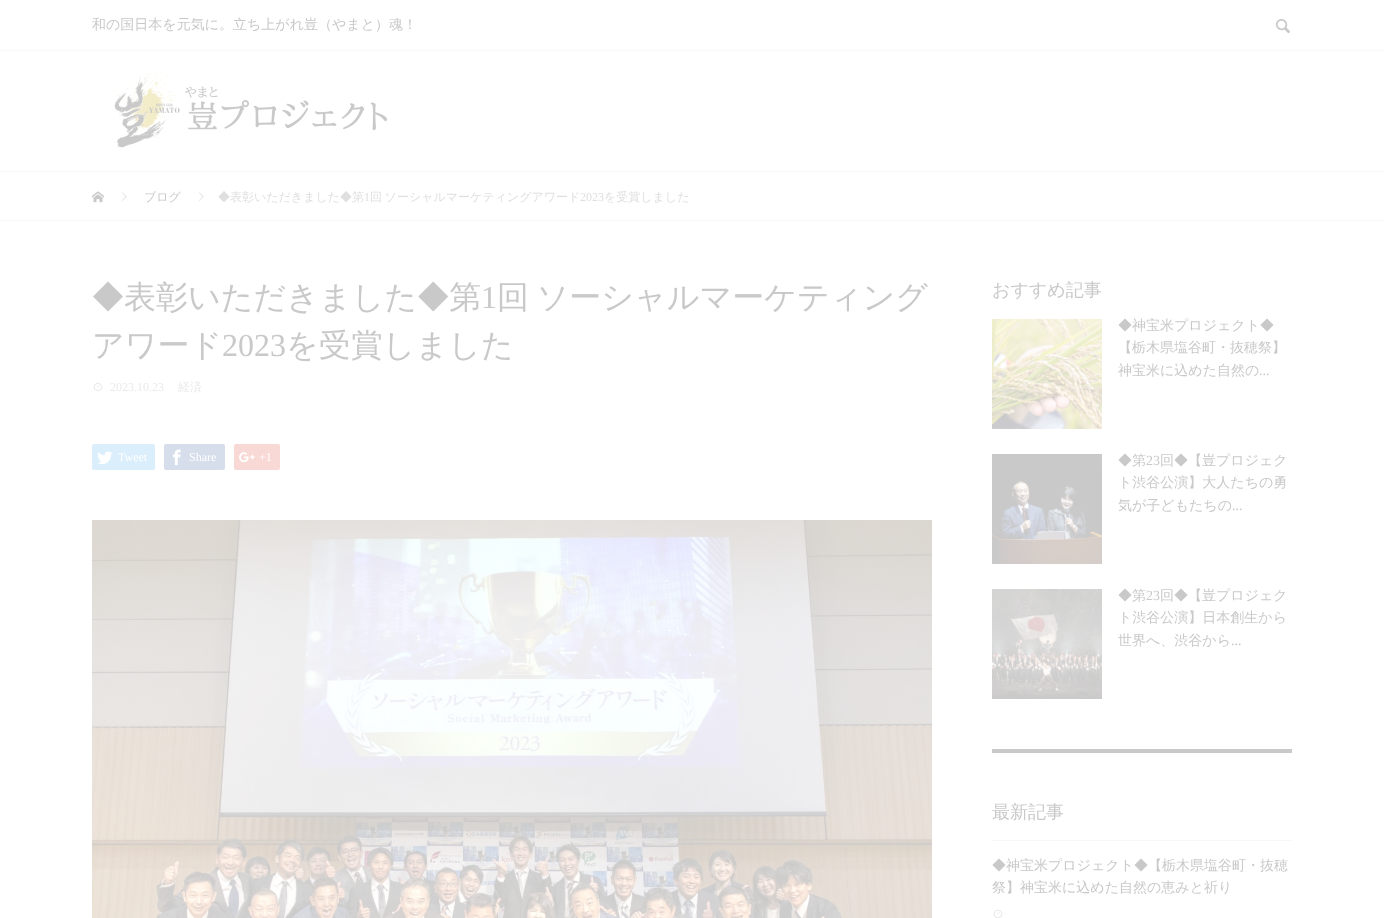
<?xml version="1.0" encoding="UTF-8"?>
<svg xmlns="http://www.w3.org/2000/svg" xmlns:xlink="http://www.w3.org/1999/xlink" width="1384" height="918">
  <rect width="100%" height="100%" fill="#ffffff" />
  <rect y="50" width="1384" height="1" fill="#f8f8f8" />
  <image x="1275" y="19" width="16" height="15" xlink:href="image1.png" />
  <image x="92" y="66" width="296" height="91" xlink:href="image2.png" />
  <rect y="171" width="1384" height="1" fill="#f8f8f8" />
  <rect y="220" width="1384" height="1" fill="#f8f8f8" />
  <image x="92" y="191" width="12" height="12" xlink:href="image3.png" />
  <image x="122" y="192" width="5" height="9" xlink:href="image4.png" />
  <image x="199" y="192" width="5" height="9" xlink:href="image4.png" />
  <image x="93" y="382" width="10" height="10" xlink:href="image5.png" />
  <rect x="92" y="444" width="63" height="26" rx="2" fill="#dbeefb" />
  <image x="97" y="451" width="16" height="14" xlink:href="image6.png" />
  <rect x="164" y="444" width="61" height="26" rx="2" fill="#d5deea" />
  <image x="172" y="449" width="9" height="17" xlink:href="image7.png" />
  <rect x="234" y="444" width="46" height="26" rx="2" fill="#f8d9d5" />
  <image x="239" y="452" width="16" height="11" xlink:href="image8.png" />
  <image x="92" y="520" width="840" height="398" xlink:href="image9.png" />
  <rect x="992" y="749" width="300" height="4" fill="#c9c9c9" />
  <image x="992" y="319" width="110" height="110" xlink:href="image10.png" />
  <image x="992" y="454" width="110" height="110" xlink:href="image11.png" />
  <image x="992" y="589" width="110" height="110" xlink:href="image12.png" />
  <rect x="992" y="840" width="300" height="1" fill="#f8f8f8" />
  <image x="993" y="909" width="10" height="9" xlink:href="image13.png" />
  <text x="92" y="29" style="font-family: WenQuanYi Zen Hei; font-size: 14px; font-weight: 500; fill: #c9c9c9">和の国日本を元気に。立ち上がれ豈（やまと）魂！</text>
  <text x="144" y="201" style="font-family: WenQuanYi Zen Hei; font-size: 12px; font-weight: 500; fill: #c9c9c9">ブログ</text>
  <text x="218" y="201" style="font-family: WenQuanYi Zen Hei; font-size: 12px; font-weight: 500; fill: #dfdfdf">◆表彰いただきました◆第</text>
  <text x="364" y="201" style="font-family: Liberation Serif; font-size: 12px; fill: #dfdfdf">1</text>
  <text x="370" y="201" word-spacing="-1" style="font-family: WenQuanYi Zen Hei; font-size: 12px; font-weight: 500; fill: #dfdfdf">回 ソーシャルマーケティングアワード</text>
  <text x="580" y="201" style="font-family: Liberation Serif; font-size: 12px; fill: #dfdfdf">2023</text>
  <text x="604" y="201" style="font-family: WenQuanYi Zen Hei; font-size: 12px; font-weight: 500; fill: #dfdfdf">を受賞しました</text>
  <text x="92" y="308" style="font-family: WenQuanYi Zen Hei; font-size: 32px; font-weight: 500; fill: #c9c9c9">◆表彰いただきました◆第</text>
  <text x="481" y="308" style="font-family: Liberation Serif; font-size: 32px; fill: #c9c9c9">1</text>
  <text x="497" y="308" word-spacing="-2" style="font-family: WenQuanYi Zen Hei; font-size: 32px; font-weight: 500; fill: #c9c9c9">回 ソーシャルマーケティング</text>
  <text x="92" y="356" style="font-family: WenQuanYi Zen Hei; font-size: 32px; font-weight: 500; fill: #c9c9c9">アワード</text>
  <text x="222" y="356" style="font-family: Liberation Serif; font-size: 32px; fill: #c9c9c9">2023</text>
  <text x="286" y="356" style="font-family: WenQuanYi Zen Hei; font-size: 32px; font-weight: 500; fill: #c9c9c9">を受賞しました</text>
  <text x="110" y="391" style="font-family: Liberation Serif; font-size: 12px; fill: #eaeaea">2023.10.23</text>
  <text x="178" y="391" style="font-family: WenQuanYi Zen Hei; font-size: 12px; font-weight: 500; fill: #eaeaea">経済</text>
  <text x="118" y="461" style="font-family: Liberation Serif; font-size: 12px; fill: #ffffff">Tweet</text>
  <text x="189" y="461" style="font-family: Liberation Serif; font-size: 12px; fill: #ffffff">Share</text>
  <text x="259" y="461" style="font-family: Liberation Serif; font-size: 12px; fill: #ffffff">+1</text>
  <text x="992" y="296" style="font-family: WenQuanYi Zen Hei; font-size: 18px; font-weight: 500; fill: #c9c9c9">おすすめ記事</text>
  <text x="1118" y="330" style="font-family: WenQuanYi Zen Hei; font-size: 14px; font-weight: 500; fill: #c9c9c9">◆神宝米プロジェクト◆</text>
  <text x="1118" y="352" style="font-family: WenQuanYi Zen Hei; font-size: 14px; font-weight: 500; fill: #c9c9c9">【栃木県塩谷町・抜穂祭】</text>
  <text x="1118" y="375" style="font-family: WenQuanYi Zen Hei; font-size: 14px; font-weight: 500; fill: #c9c9c9">神宝米に込めた自然の</text>
  <text x="1259" y="375" style="font-family: Liberation Serif; font-size: 14px; fill: #c9c9c9">...</text>
  <text x="1118" y="465" style="font-family: WenQuanYi Zen Hei; font-size: 14px; font-weight: 500; fill: #c9c9c9">◆第</text>
  <text x="1146" y="465" style="font-family: Liberation Serif; font-size: 14px; fill: #c9c9c9">23</text>
  <text x="1160" y="465" style="font-family: WenQuanYi Zen Hei; font-size: 14px; font-weight: 500; fill: #c9c9c9">回◆【豈プロジェク</text>
  <text x="1118" y="487" style="font-family: WenQuanYi Zen Hei; font-size: 14px; font-weight: 500; fill: #c9c9c9">ト渋谷公演】大人たちの勇</text>
  <text x="1118" y="510" style="font-family: WenQuanYi Zen Hei; font-size: 14px; font-weight: 500; fill: #c9c9c9">気が子どもたちの</text>
  <text x="1232" y="510" style="font-family: Liberation Serif; font-size: 14px; fill: #c9c9c9">...</text>
  <text x="1118" y="600" style="font-family: WenQuanYi Zen Hei; font-size: 14px; font-weight: 500; fill: #c9c9c9">◆第</text>
  <text x="1146" y="600" style="font-family: Liberation Serif; font-size: 14px; fill: #c9c9c9">23</text>
  <text x="1160" y="600" style="font-family: WenQuanYi Zen Hei; font-size: 14px; font-weight: 500; fill: #c9c9c9">回◆【豈プロジェク</text>
  <text x="1118" y="622" style="font-family: WenQuanYi Zen Hei; font-size: 14px; font-weight: 500; fill: #c9c9c9">ト渋谷公演】日本創生から</text>
  <text x="1118" y="645" style="font-family: WenQuanYi Zen Hei; font-size: 14px; font-weight: 500; fill: #c9c9c9">世界へ、渋谷から</text>
  <text x="1231" y="645" style="font-family: Liberation Serif; font-size: 14px; fill: #c9c9c9">...</text>
  <text x="992" y="818" style="font-family: WenQuanYi Zen Hei; font-size: 18px; font-weight: 500; fill: #c9c9c9">最新記事</text>
  <text x="992" y="870" style="font-family: WenQuanYi Zen Hei; font-size: 14px; font-weight: 500; fill: #c9c9c9">◆神宝米プロジェクト◆【栃木県塩谷町・抜穂</text>
  <text x="992" y="892" style="font-family: WenQuanYi Zen Hei; font-size: 14px; font-weight: 500; fill: #c9c9c9">祭】神宝米に込めた自然の恵みと祈り</text>
</svg>
